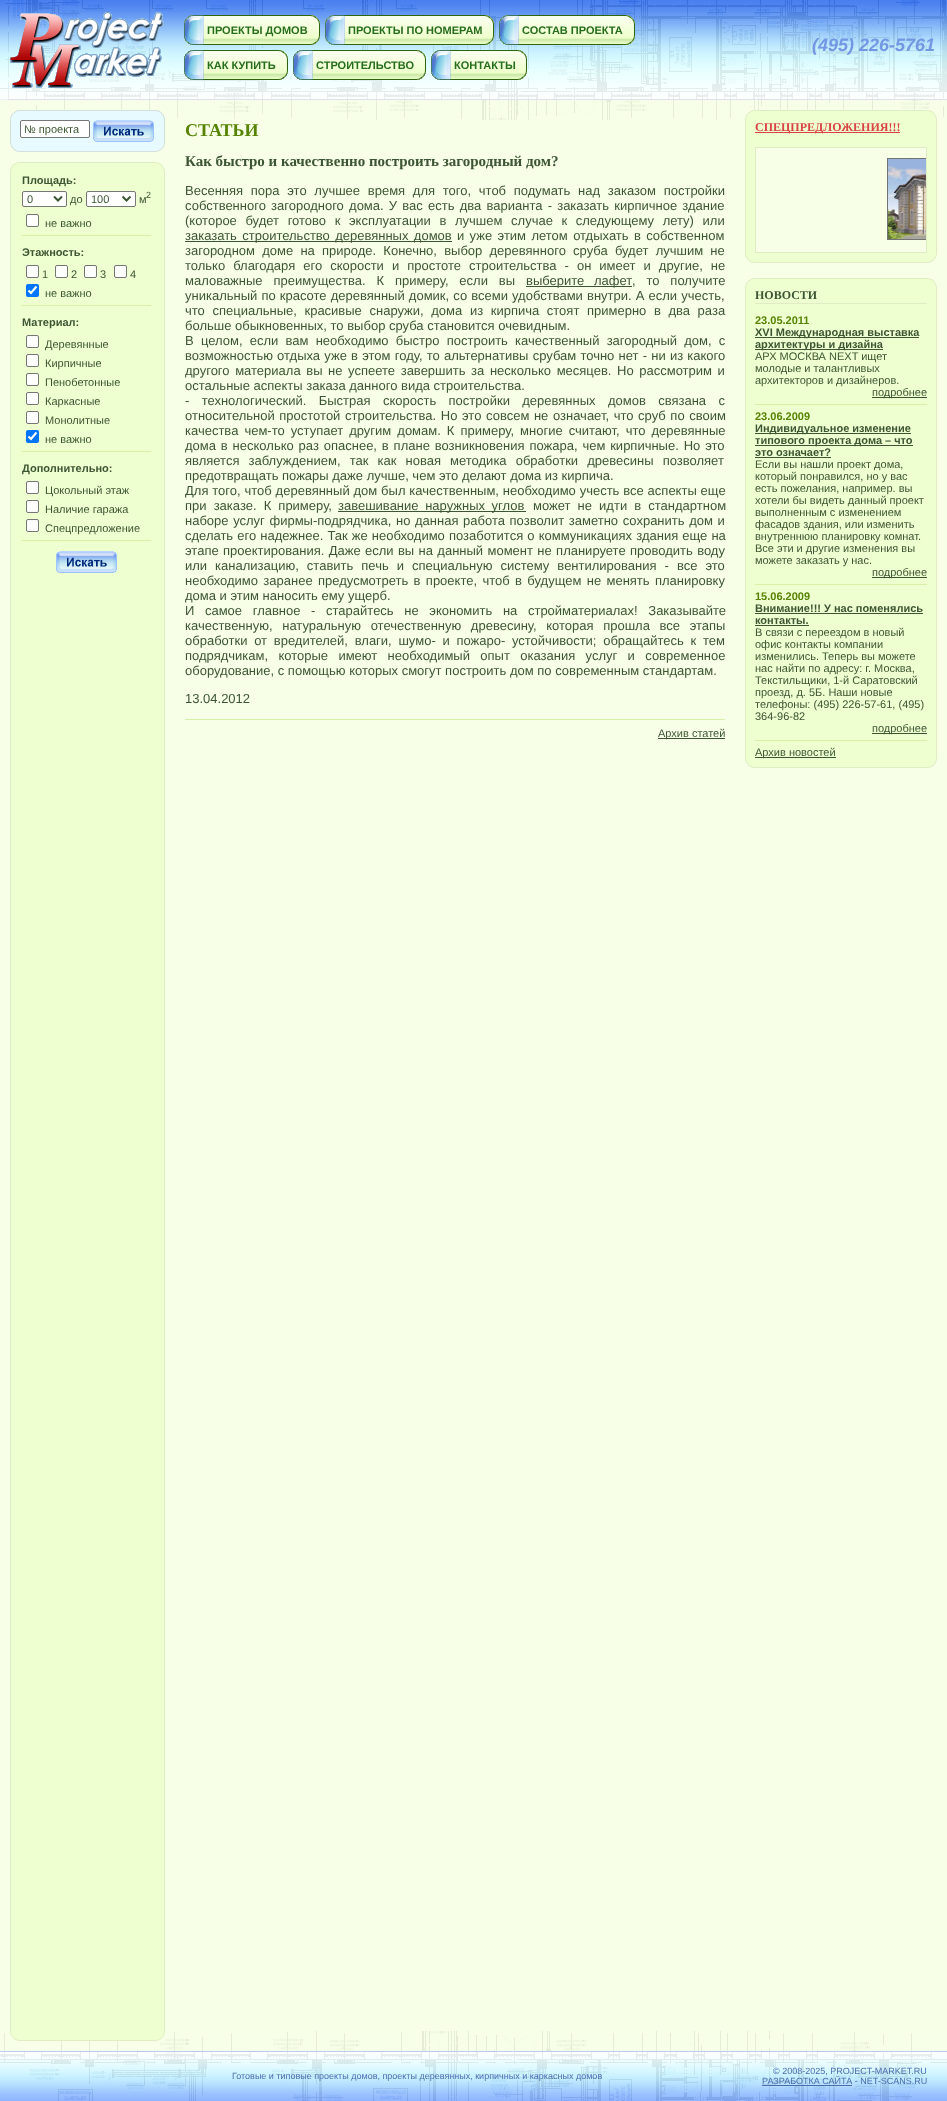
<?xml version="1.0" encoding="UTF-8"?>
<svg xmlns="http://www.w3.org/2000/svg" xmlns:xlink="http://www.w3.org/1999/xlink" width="947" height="2101">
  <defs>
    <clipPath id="clip1"><rect x="756" y="148" width="170" height="104" /></clipPath>
  </defs>
  <rect width="100%" height="100%" fill="#f7ffe6" />
  <image x="0" y="0" width="947" height="120" xlink:href="image1.png" />
  <image x="0" y="2031" width="947" height="70" xlink:href="image2.png" />
  <image x="10" y="12" width="154" height="76" xlink:href="image3.png" />
  <image x="184" y="15" width="20" height="30" xlink:href="image4.png" />
  <image x="204" y="15" width="107" height="30" xlink:href="image5.png" />
  <image x="311" y="15" width="9" height="30" xlink:href="image6.png" />
  <image x="325" y="15" width="20" height="30" xlink:href="image4.png" />
  <image x="345" y="15" width="140" height="30" xlink:href="image7.png" />
  <image x="485" y="15" width="9" height="30" xlink:href="image8.png" />
  <image x="499" y="15" width="20" height="30" xlink:href="image9.png" />
  <image x="519" y="15" width="107" height="30" xlink:href="image5.png" />
  <image x="626" y="15" width="9" height="30" xlink:href="image10.png" />
  <image x="184" y="50" width="20" height="30" xlink:href="image11.png" />
  <image x="204" y="50" width="75" height="30" xlink:href="image12.png" />
  <image x="279" y="50" width="9" height="30" xlink:href="image13.png" />
  <image x="293" y="50" width="20" height="30" xlink:href="image14.png" />
  <image x="313" y="50" width="104" height="30" xlink:href="image15.png" />
  <image x="417" y="50" width="9" height="30" xlink:href="image13.png" />
  <image x="431" y="50" width="20" height="30" xlink:href="image16.png" />
  <image x="451" y="50" width="67" height="30" xlink:href="image17.png" />
  <image x="518" y="50" width="9" height="30" xlink:href="image13.png" />
  <image x="10" y="110" width="10" height="10" xlink:href="image18.png" />
  <rect x="20" y="111" width="135" height="9" fill="#e7faff" />
  <rect x="20" y="110" width="135" height="1" fill="#d3dfdb" />
  <image x="155" y="110" width="10" height="10" xlink:href="image19.png" />
  <rect x="11" y="120" width="153" height="22" fill="#e7faff" />
  <rect x="10" y="120" width="1" height="22" fill="#d3dfdb" />
  <rect x="164" y="120" width="1" height="22" fill="#d3dfdb" />
  <rect x="20.5" y="120.5" width="69" height="17" rx="1.5" fill="#ffffff" stroke="#767676" />
  <image x="93" y="120" width="61" height="22" xlink:href="image20.png" />
  <image x="10" y="142" width="10" height="10" xlink:href="image21.png" />
  <rect x="20" y="142" width="135" height="9" fill="#e7faff" />
  <rect x="20" y="151" width="135" height="1" fill="#d3dfdb" />
  <image x="155" y="142" width="10" height="10" xlink:href="image22.png" />
  <image x="10" y="162" width="10" height="10" xlink:href="image23.png" />
  <rect x="20" y="163" width="135" height="9" fill="#eeffd0" />
  <rect x="20" y="162" width="135" height="1" fill="#dfedc4" />
  <image x="155" y="162" width="10" height="10" xlink:href="image24.png" />
  <rect x="11" y="172" width="153" height="1859" fill="#eeffd0" />
  <rect x="10" y="172" width="1" height="1859" fill="#dfedc4" />
  <rect x="164" y="172" width="1" height="1859" fill="#dfedc4" />
  <rect x="22.5" y="191.5" width="44" height="15" rx="1.5" fill="#ffffff" stroke="#767676" />
  <path d="M 54 196.5 l 4 4 l 4 -4" fill="none" stroke="#3c5532" stroke-width="2" />
  <rect x="86.5" y="191.5" width="49" height="15" rx="1.5" fill="#ffffff" stroke="#767676" />
  <path d="M 122.5 196.5 l 4 4 l 4 -4" fill="none" stroke="#3c5532" stroke-width="2" />
  <rect x="26.5" y="214.5" width="12" height="12" rx="1.5" fill="#ffffff" stroke="#767676" />
  <rect x="22" y="235" width="129" height="1" fill="#d8f1a7" />
  <rect x="26.5" y="265.5" width="12" height="12" rx="1.5" fill="#ffffff" stroke="#767676" />
  <rect x="55.5" y="265.5" width="12" height="12" rx="1.5" fill="#ffffff" stroke="#767676" />
  <rect x="84.5" y="265.5" width="12" height="12" rx="1.5" fill="#ffffff" stroke="#767676" />
  <rect x="114.5" y="265.5" width="12" height="12" rx="1.5" fill="#ffffff" stroke="#767676" />
  <rect x="26" y="284" width="13" height="13" rx="2" fill="#0075ff" />
  <path d="M 28.5 290.5 l 2.5 2.5 l 5.5 -6.5" fill="none" stroke="#ffffff" stroke-width="2.1" />
  <rect x="22" y="305" width="129" height="1" fill="#d8f1a7" />
  <rect x="26.5" y="335.5" width="12" height="12" rx="1.5" fill="#ffffff" stroke="#767676" />
  <rect x="26.5" y="354.5" width="12" height="12" rx="1.5" fill="#ffffff" stroke="#767676" />
  <rect x="26.5" y="373.5" width="12" height="12" rx="1.5" fill="#ffffff" stroke="#767676" />
  <rect x="26.5" y="392.5" width="12" height="12" rx="1.5" fill="#ffffff" stroke="#767676" />
  <rect x="26.5" y="411.5" width="12" height="12" rx="1.5" fill="#ffffff" stroke="#767676" />
  <rect x="26" y="430" width="13" height="13" rx="2" fill="#0075ff" />
  <path d="M 28.5 436.5 l 2.5 2.5 l 5.5 -6.5" fill="none" stroke="#ffffff" stroke-width="2.1" />
  <rect x="22" y="451" width="129" height="1" fill="#d8f1a7" />
  <rect x="26.5" y="481.5" width="12" height="12" rx="1.5" fill="#ffffff" stroke="#767676" />
  <rect x="26.5" y="500.5" width="12" height="12" rx="1.5" fill="#ffffff" stroke="#767676" />
  <rect x="26.5" y="519.5" width="12" height="12" rx="1.5" fill="#ffffff" stroke="#767676" />
  <rect x="22" y="540" width="129" height="1" fill="#d8f1a7" />
  <image x="56" y="551" width="61" height="22" xlink:href="image25.png" />
  <image x="10" y="2031" width="10" height="10" xlink:href="image26.png" />
  <rect x="20" y="2031" width="135" height="9" fill="#eeffd0" />
  <rect x="20" y="2040" width="135" height="1" fill="#dfedc4" />
  <image x="155" y="2031" width="10" height="10" xlink:href="image27.png" />
  <rect x="185" y="241" width="267" height="1" fill="#3c5532" />
  <rect x="526" y="286" width="106" height="1" fill="#3c5532" />
  <rect x="338" y="511" width="188" height="1" fill="#3c5532" />
  <rect x="185" y="719" width="540" height="1" fill="#d8f1a7" />
  <rect x="658" y="738" width="67" height="1" fill="#3c5532" />
  <image x="745" y="110" width="10" height="10" xlink:href="image23.png" />
  <rect x="755" y="111" width="172" height="36" fill="#eeffd0" />
  <rect x="755" y="110" width="172" height="1" fill="#dfedc4" />
  <image x="927" y="110" width="10" height="10" xlink:href="image24.png" />
  <rect x="746" y="120" width="9" height="133" fill="#eeffd0" />
  <rect x="745" y="120" width="1" height="133" fill="#dfedc4" />
  <rect x="755" y="132" width="145" height="1" fill="#d84444" />
  <rect x="755.5" y="147.5" width="171" height="105" fill="none" stroke="#dfedc4" />
  <rect x="927" y="120" width="9" height="133" fill="#eeffd0" />
  <rect x="936" y="120" width="1" height="133" fill="#dfedc4" />
  <g clip-path="url(#clip1)">
    <rect x="887.5" y="158.5" width="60" height="81" fill="none" stroke="#737373" />
  </g>
  <image x="888" y="159" width="38" height="80" xlink:href="image28.png" />
  <image x="745" y="253" width="10" height="10" xlink:href="image26.png" />
  <rect x="755" y="253" width="172" height="9" fill="#eeffd0" />
  <rect x="755" y="262" width="172" height="1" fill="#dfedc4" />
  <image x="927" y="253" width="10" height="10" xlink:href="image27.png" />
  <image x="745" y="278" width="10" height="10" xlink:href="image23.png" />
  <rect x="755" y="279" width="172" height="9" fill="#eeffd0" />
  <rect x="755" y="278" width="172" height="1" fill="#dfedc4" />
  <image x="927" y="278" width="10" height="10" xlink:href="image24.png" />
  <rect x="746" y="288" width="190" height="470" fill="#eeffd0" />
  <rect x="745" y="288" width="1" height="470" fill="#dfedc4" />
  <rect x="936" y="288" width="1" height="470" fill="#dfedc4" />
  <rect x="755" y="303" width="172" height="1" fill="#dfedc4" />
  <rect x="755" y="337" width="164" height="1" fill="#3c5532" />
  <rect x="755" y="349" width="128" height="1" fill="#3c5532" />
  <rect x="872" y="397" width="55" height="1" fill="#3c5532" />
  <rect x="755" y="404" width="172" height="1" fill="#d8f1a7" />
  <rect x="755" y="433" width="156" height="1" fill="#3c5532" />
  <rect x="755" y="445" width="158" height="1" fill="#3c5532" />
  <rect x="755" y="457" width="76" height="1" fill="#3c5532" />
  <rect x="872" y="577" width="55" height="1" fill="#3c5532" />
  <rect x="755" y="584" width="172" height="1" fill="#d8f1a7" />
  <rect x="755" y="613" width="168" height="1" fill="#3c5532" />
  <rect x="755" y="625" width="54" height="1" fill="#3c5532" />
  <rect x="872" y="733" width="55" height="1" fill="#3c5532" />
  <rect x="755" y="740" width="172" height="1" fill="#d8f1a7" />
  <rect x="755" y="757" width="81" height="1" fill="#3c5532" />
  <image x="745" y="758" width="10" height="10" xlink:href="image26.png" />
  <rect x="755" y="758" width="172" height="9" fill="#eeffd0" />
  <rect x="755" y="767" width="172" height="1" fill="#dfedc4" />
  <image x="927" y="758" width="10" height="10" xlink:href="image27.png" />
  <rect x="762" y="2085" width="90" height="1" fill="#4c6eb0" />
  <text x="207" y="34" style="font-family: Liberation Sans; font-size: 11px; font-weight: bold; fill: #256e1a">ПРОЕКТЫ ДОМОВ</text>
  <text x="348" y="34" style="font-family: Liberation Sans; font-size: 11px; font-weight: bold; fill: #256e1a">ПРОЕКТЫ ПО НОМЕРАМ</text>
  <text x="522" y="34" style="font-family: Liberation Sans; font-size: 11px; font-weight: bold; fill: #256e1a">СОСТАВ ПРОЕКТА</text>
  <text x="207" y="69" style="font-family: Liberation Sans; font-size: 11px; font-weight: bold; fill: #256e1a">КАК КУПИТЬ</text>
  <text x="316" y="69" style="font-family: Liberation Sans; font-size: 11px; font-weight: bold; fill: #256e1a">СТРОИТЕЛЬСТВО</text>
  <text x="454" y="69" style="font-family: Liberation Sans; font-size: 11px; font-weight: bold; fill: #256e1a">КОНТАКТЫ</text>
  <text x="812" y="51" style="font-family: Liberation Sans; font-size: 18px; font-weight: bold; font-style: italic; fill: #7397e3">(495) 226-5761</text>
  <text x="24" y="133" style="font-family: Liberation Sans; font-size: 11px; fill: #3c5532">№ проекта</text>
  <text x="22" y="184" style="font-family: Liberation Sans; font-size: 11px; font-weight: bold; fill: #3c5532">Площадь:</text>
  <text x="27" y="203" style="font-family: Liberation Sans; font-size: 11px; fill: #3c5532">0</text>
  <text x="70" y="203" style="font-family: Liberation Sans; font-size: 11px; fill: #3c5532">до</text>
  <text x="91" y="203" style="font-family: Liberation Sans; font-size: 11px; fill: #3c5532">100</text>
  <text x="139" y="203" style="font-family: Liberation Sans; font-size: 11px; fill: #3c5532">м</text>
  <text x="146" y="198" style="font-family: Liberation Sans; font-size: 9px; fill: #3c5532">2</text>
  <text x="45" y="227" style="font-family: Liberation Sans; font-size: 11px; fill: #3c5532">не важно</text>
  <text x="22" y="256" style="font-family: Liberation Sans; font-size: 11px; font-weight: bold; fill: #3c5532">Этажность:</text>
  <text x="42" y="278" style="font-family: Liberation Sans; font-size: 11px; fill: #3c5532">1</text>
  <text x="71" y="278" style="font-family: Liberation Sans; font-size: 11px; fill: #3c5532">2</text>
  <text x="100" y="278" style="font-family: Liberation Sans; font-size: 11px; fill: #3c5532">3</text>
  <text x="130" y="278" style="font-family: Liberation Sans; font-size: 11px; fill: #3c5532">4</text>
  <text x="45" y="297" style="font-family: Liberation Sans; font-size: 11px; fill: #3c5532">не важно</text>
  <text x="22" y="326" style="font-family: Liberation Sans; font-size: 11px; font-weight: bold; fill: #3c5532">Материал:</text>
  <text x="45" y="348" style="font-family: Liberation Sans; font-size: 11px; fill: #3c5532">Деревянные</text>
  <text x="45" y="367" style="font-family: Liberation Sans; font-size: 11px; fill: #3c5532">Кирпичные</text>
  <text x="45" y="386" style="font-family: Liberation Sans; font-size: 11px; fill: #3c5532">Пенобетонные</text>
  <text x="45" y="405" style="font-family: Liberation Sans; font-size: 11px; fill: #3c5532">Каркасные</text>
  <text x="45" y="424" style="font-family: Liberation Sans; font-size: 11px; fill: #3c5532">Монолитные</text>
  <text x="45" y="443" style="font-family: Liberation Sans; font-size: 11px; fill: #3c5532">не важно</text>
  <text x="22" y="472" style="font-family: Liberation Sans; font-size: 11px; font-weight: bold; fill: #3c5532">Дополнительно:</text>
  <text x="45" y="494" style="font-family: Liberation Sans; font-size: 11px; fill: #3c5532">Цокольный этаж</text>
  <text x="45" y="513" style="font-family: Liberation Sans; font-size: 11px; fill: #3c5532">Наличие гаража</text>
  <text x="45" y="532" style="font-family: Liberation Sans; font-size: 11px; fill: #3c5532">Спецпредложение</text>
  <text x="185" y="136" style="font-family: Liberation Serif; font-size: 18px; font-weight: bold; fill: #568301">СТАТЬИ</text>
  <text x="185" y="166" style="font-family: Liberation Serif; font-size: 15px; font-weight: bold; fill: #3c5532">Как быстро и качественно построить загородный дом?</text>
  <text x="185" y="195" word-spacing="4.1" style="font-family: Liberation Sans; font-size: 13px; fill: #3c5532">Весенняя пора это лучшее время для того, чтоб подумать над заказом постройки</text>
  <text x="185" y="210" word-spacing="1.6" style="font-family: Liberation Sans; font-size: 13px; fill: #3c5532">собственного загородного дома. У вас есть два варианта - заказать кирпичное здание</text>
  <text x="185" y="225" word-spacing="5" style="font-family: Liberation Sans; font-size: 13px; fill: #3c5532">(которое будет готово к эксплуатации в лучшем случае к следующему лету) или</text>
  <text x="185" y="240" word-spacing="1.75" style="font-family: Liberation Sans; font-size: 13px; fill: #3c5532">заказать строительство деревянных домов</text>
  <text x="457" y="240" word-spacing="1.75" style="font-family: Liberation Sans; font-size: 13px; fill: #3c5532">и уже этим летом отдыхать в собственном</text>
  <text x="185" y="255" word-spacing="3.6" style="font-family: Liberation Sans; font-size: 13px; fill: #3c5532">загородном доме на природе. Конечно, выбор деревянного сруба будет лучшим не</text>
  <text x="185" y="270" word-spacing="4.4" style="font-family: Liberation Sans; font-size: 13px; fill: #3c5532">только благодаря его скорости и простоте строительства - он имеет и другие, не</text>
  <text x="185" y="285" word-spacing="7.25" style="font-family: Liberation Sans; font-size: 13px; fill: #3c5532">маловажные преимущества. К примеру, если вы</text>
  <text x="526" y="285" word-spacing="6" style="font-family: Liberation Sans; font-size: 13px; fill: #3c5532">выберите лафет</text>
  <text x="632" y="285" word-spacing="7.25" style="font-family: Liberation Sans; font-size: 13px; fill: #3c5532">, то получите</text>
  <text x="185" y="300" word-spacing="0.5" style="font-family: Liberation Sans; font-size: 13px; fill: #3c5532">уникальный по красоте деревянный домик, со всеми удобствами внутри. А если учесть,</text>
  <text x="185" y="315" word-spacing="4" style="font-family: Liberation Sans; font-size: 13px; fill: #3c5532">что специальные, красивые снаружи, дома из кирпича стоят примерно в два раза</text>
  <text x="185" y="330" style="font-family: Liberation Sans; font-size: 13px; fill: #3c5532">больше обыкновенных, то выбор сруба становится очевидным.</text>
  <text x="185" y="345" word-spacing="3.6" style="font-family: Liberation Sans; font-size: 13px; fill: #3c5532">В целом, если вам необходимо быстро построить качественный загородный дом, с</text>
  <text x="185" y="360" word-spacing="0.6" style="font-family: Liberation Sans; font-size: 13px; fill: #3c5532">возможностью отдыха уже в этом году, то альтернативы срубам точно нет - ни из какого</text>
  <text x="185" y="375" word-spacing="2" style="font-family: Liberation Sans; font-size: 13px; fill: #3c5532">другого материала вы не успеете завершить за несколько месяцев. Но рассмотрим и</text>
  <text x="185" y="390" style="font-family: Liberation Sans; font-size: 13px; fill: #3c5532">остальные аспекты заказа данного вида строительства.</text>
  <text x="185" y="405" word-spacing="8.75" style="font-family: Liberation Sans; font-size: 13px; fill: #3c5532">- технологический. Быстрая скорость постройки деревянных домов связана с</text>
  <text x="185" y="420" word-spacing="1" style="font-family: Liberation Sans; font-size: 13px; fill: #3c5532">относительной простотой строительства. Но это совсем не означает, что сруб по своим</text>
  <text x="185" y="435" word-spacing="2.4" style="font-family: Liberation Sans; font-size: 13px; fill: #3c5532">качества чем-то уступает другим домам. К примеру, многие считают, что деревянные</text>
  <text x="185" y="450" word-spacing="1.25" style="font-family: Liberation Sans; font-size: 13px; fill: #3c5532">дома в несколько раз опаснее, в плане возникновения пожара, чем кирпичные. Но это</text>
  <text x="185" y="465" word-spacing="5.5" style="font-family: Liberation Sans; font-size: 13px; fill: #3c5532">является заблуждением, так как новая методика обработки древесины позволяет</text>
  <text x="185" y="480" style="font-family: Liberation Sans; font-size: 13px; fill: #3c5532">предотвращать пожары даже лучше, чем это делают дома из кирпича.</text>
  <text x="185" y="495" word-spacing="0.25" style="font-family: Liberation Sans; font-size: 13px; fill: #3c5532">Для того, чтоб деревянный дом был качественным, необходимо учесть все аспекты еще</text>
  <text x="185" y="510" word-spacing="3.5" style="font-family: Liberation Sans; font-size: 13px; fill: #3c5532">при заказе. К примеру,</text>
  <text x="338" y="510" word-spacing="3" style="font-family: Liberation Sans; font-size: 13px; fill: #3c5532">завешивание наружных углов</text>
  <text x="533" y="510" word-spacing="3.5" style="font-family: Liberation Sans; font-size: 13px; fill: #3c5532">может не идти в стандартном</text>
  <text x="185" y="525" word-spacing="1" style="font-family: Liberation Sans; font-size: 13px; fill: #3c5532">наборе услуг фирмы-подрядчика, но данная работа позволит заметно сохранить дом и</text>
  <text x="185" y="540" word-spacing="0.5" style="font-family: Liberation Sans; font-size: 13px; fill: #3c5532">сделать его надежнее. Так же необходимо позаботится о коммуникациях здания еще на</text>
  <text x="185" y="555" word-spacing="0.75" style="font-family: Liberation Sans; font-size: 13px; fill: #3c5532">этапе проектирования. Даже если вы на данный момент не планируете проводить воду</text>
  <text x="185" y="570" word-spacing="4.4" style="font-family: Liberation Sans; font-size: 13px; fill: #3c5532">или канализацию, ставить печь и специальную систему вентилирования - все это</text>
  <text x="185" y="585" word-spacing="1.75" style="font-family: Liberation Sans; font-size: 13px; fill: #3c5532">необходимо заранее предусмотреть в проекте, чтоб в будущем не менять планировку</text>
  <text x="185" y="600" style="font-family: Liberation Sans; font-size: 13px; fill: #3c5532">дома и этим наносить ему ущерб.</text>
  <text x="185" y="615" word-spacing="7" style="font-family: Liberation Sans; font-size: 13px; fill: #3c5532">И самое главное - старайтесь не экономить на стройматериалах! Заказывайте</text>
  <text x="185" y="630" word-spacing="6" style="font-family: Liberation Sans; font-size: 13px; fill: #3c5532">качественную, натуральную отечественную древесину, которая прошла все этапы</text>
  <text x="185" y="645" word-spacing="3.1" style="font-family: Liberation Sans; font-size: 13px; fill: #3c5532">обработки от вредителей, влаги, шумо- и пожаро- устойчивости; обращайтесь к тем</text>
  <text x="185" y="660" word-spacing="6.75" style="font-family: Liberation Sans; font-size: 13px; fill: #3c5532">подрядчикам, которые имеют необходимый опыт оказания услуг и современное</text>
  <text x="185" y="675" style="font-family: Liberation Sans; font-size: 13px; fill: #3c5532">оборудование, с помощью которых смогут построить дом по современным стандартам.</text>
  <text x="185" y="703" style="font-family: Liberation Sans; font-size: 13px; fill: #3c5532">13.04.2012</text>
  <text x="658" y="737" style="font-family: Liberation Sans; font-size: 11px; fill: #3c5532">Архив статей</text>
  <text x="755" y="131" style="font-family: Liberation Serif; font-size: 12px; font-weight: bold; fill: #d84444">СПЕЦПРЕДЛОЖЕНИЯ!!!</text>
  <text x="755" y="299" style="font-family: Liberation Serif; font-size: 12px; font-weight: bold; fill: #3c5532">НОВОСТИ</text>
  <text x="755" y="324" style="font-family: Liberation Sans; font-size: 11px; font-weight: bold; fill: #568301">23.05.2011</text>
  <text x="755" y="336" style="font-family: Liberation Sans; font-size: 11px; font-weight: bold; fill: #3c5532">XVI Международная выставка</text>
  <text x="755" y="348" style="font-family: Liberation Sans; font-size: 11px; font-weight: bold; fill: #3c5532">архитектуры и дизайна</text>
  <text x="755" y="360" style="font-family: Liberation Sans; font-size: 11px; fill: #3c5532">АРХ МОСКВА NEXT ищет</text>
  <text x="755" y="372" style="font-family: Liberation Sans; font-size: 11px; fill: #3c5532">молодые и талантливых</text>
  <text x="755" y="384" style="font-family: Liberation Sans; font-size: 11px; fill: #3c5532">архитекторов и дизайнеров.</text>
  <text x="872" y="396" style="font-family: Liberation Sans; font-size: 11px; fill: #3c5532">подробнее</text>
  <text x="755" y="420" style="font-family: Liberation Sans; font-size: 11px; font-weight: bold; fill: #568301">23.06.2009</text>
  <text x="755" y="432" style="font-family: Liberation Sans; font-size: 11px; font-weight: bold; fill: #3c5532">Индивидуальное изменение</text>
  <text x="755" y="444" style="font-family: Liberation Sans; font-size: 11px; font-weight: bold; fill: #3c5532">типового проекта дома – что</text>
  <text x="755" y="456" style="font-family: Liberation Sans; font-size: 11px; font-weight: bold; fill: #3c5532">это означает?</text>
  <text x="755" y="468" style="font-family: Liberation Sans; font-size: 11px; fill: #3c5532">Если вы нашли проект дома,</text>
  <text x="755" y="480" style="font-family: Liberation Sans; font-size: 11px; fill: #3c5532">который понравился, но у вас</text>
  <text x="755" y="492" style="font-family: Liberation Sans; font-size: 11px; fill: #3c5532">есть пожелания, например. вы</text>
  <text x="755" y="504" style="font-family: Liberation Sans; font-size: 11px; fill: #3c5532">хотели бы видеть данный проект</text>
  <text x="755" y="516" style="font-family: Liberation Sans; font-size: 11px; fill: #3c5532">выполненным с изменением</text>
  <text x="755" y="528" style="font-family: Liberation Sans; font-size: 11px; fill: #3c5532">фасадов здания, или изменить</text>
  <text x="755" y="540" style="font-family: Liberation Sans; font-size: 11px; fill: #3c5532">внутреннюю планировку комнат.</text>
  <text x="755" y="552" style="font-family: Liberation Sans; font-size: 11px; fill: #3c5532">Все эти и другие изменения вы</text>
  <text x="755" y="564" style="font-family: Liberation Sans; font-size: 11px; fill: #3c5532">можете заказать у нас.</text>
  <text x="872" y="576" style="font-family: Liberation Sans; font-size: 11px; fill: #3c5532">подробнее</text>
  <text x="755" y="600" style="font-family: Liberation Sans; font-size: 11px; font-weight: bold; fill: #568301">15.06.2009</text>
  <text x="755" y="612" style="font-family: Liberation Sans; font-size: 11px; font-weight: bold; fill: #3c5532">Внимание!!! У нас поменялись</text>
  <text x="755" y="624" style="font-family: Liberation Sans; font-size: 11px; font-weight: bold; fill: #3c5532">контакты.</text>
  <text x="755" y="636" style="font-family: Liberation Sans; font-size: 11px; fill: #3c5532">В связи с переездом в новый</text>
  <text x="755" y="648" style="font-family: Liberation Sans; font-size: 11px; fill: #3c5532">офис контакты компании</text>
  <text x="755" y="660" style="font-family: Liberation Sans; font-size: 11px; fill: #3c5532">изменились. Теперь вы можете</text>
  <text x="755" y="672" style="font-family: Liberation Sans; font-size: 11px; fill: #3c5532">нас найти по адресу: г. Москва,</text>
  <text x="755" y="684" style="font-family: Liberation Sans; font-size: 11px; fill: #3c5532">Текстильщики, 1-й Саратовский</text>
  <text x="755" y="696" style="font-family: Liberation Sans; font-size: 11px; fill: #3c5532">проезд, д. 5Б. Наши новые</text>
  <text x="755" y="708" style="font-family: Liberation Sans; font-size: 11px; fill: #3c5532">телефоны: (495) 226-57-61, (495)</text>
  <text x="755" y="720" style="font-family: Liberation Sans; font-size: 11px; fill: #3c5532">364-96-82</text>
  <text x="872" y="732" style="font-family: Liberation Sans; font-size: 11px; fill: #3c5532">подробнее</text>
  <text x="755" y="756" style="font-family: Liberation Sans; font-size: 11px; fill: #3c5532">Архив новостей</text>
  <text x="232" y="2079" style="font-family: Liberation Sans; font-size: 9px; fill: #4c6eb0">Готовые и типовые проекты домов, проекты деревянных, кирпичных и каркасных домов</text>
  <text x="773" y="2074" style="font-family: Liberation Sans; font-size: 9px; fill: #4c6eb0">© 2008-2025, PROJECT-MARKET.RU</text>
  <text x="762" y="2084" style="font-family: Liberation Sans; font-size: 9px; fill: #4c6eb0">РАЗРАБОТКА САЙТА - NET-SCANS.RU</text>
</svg>
